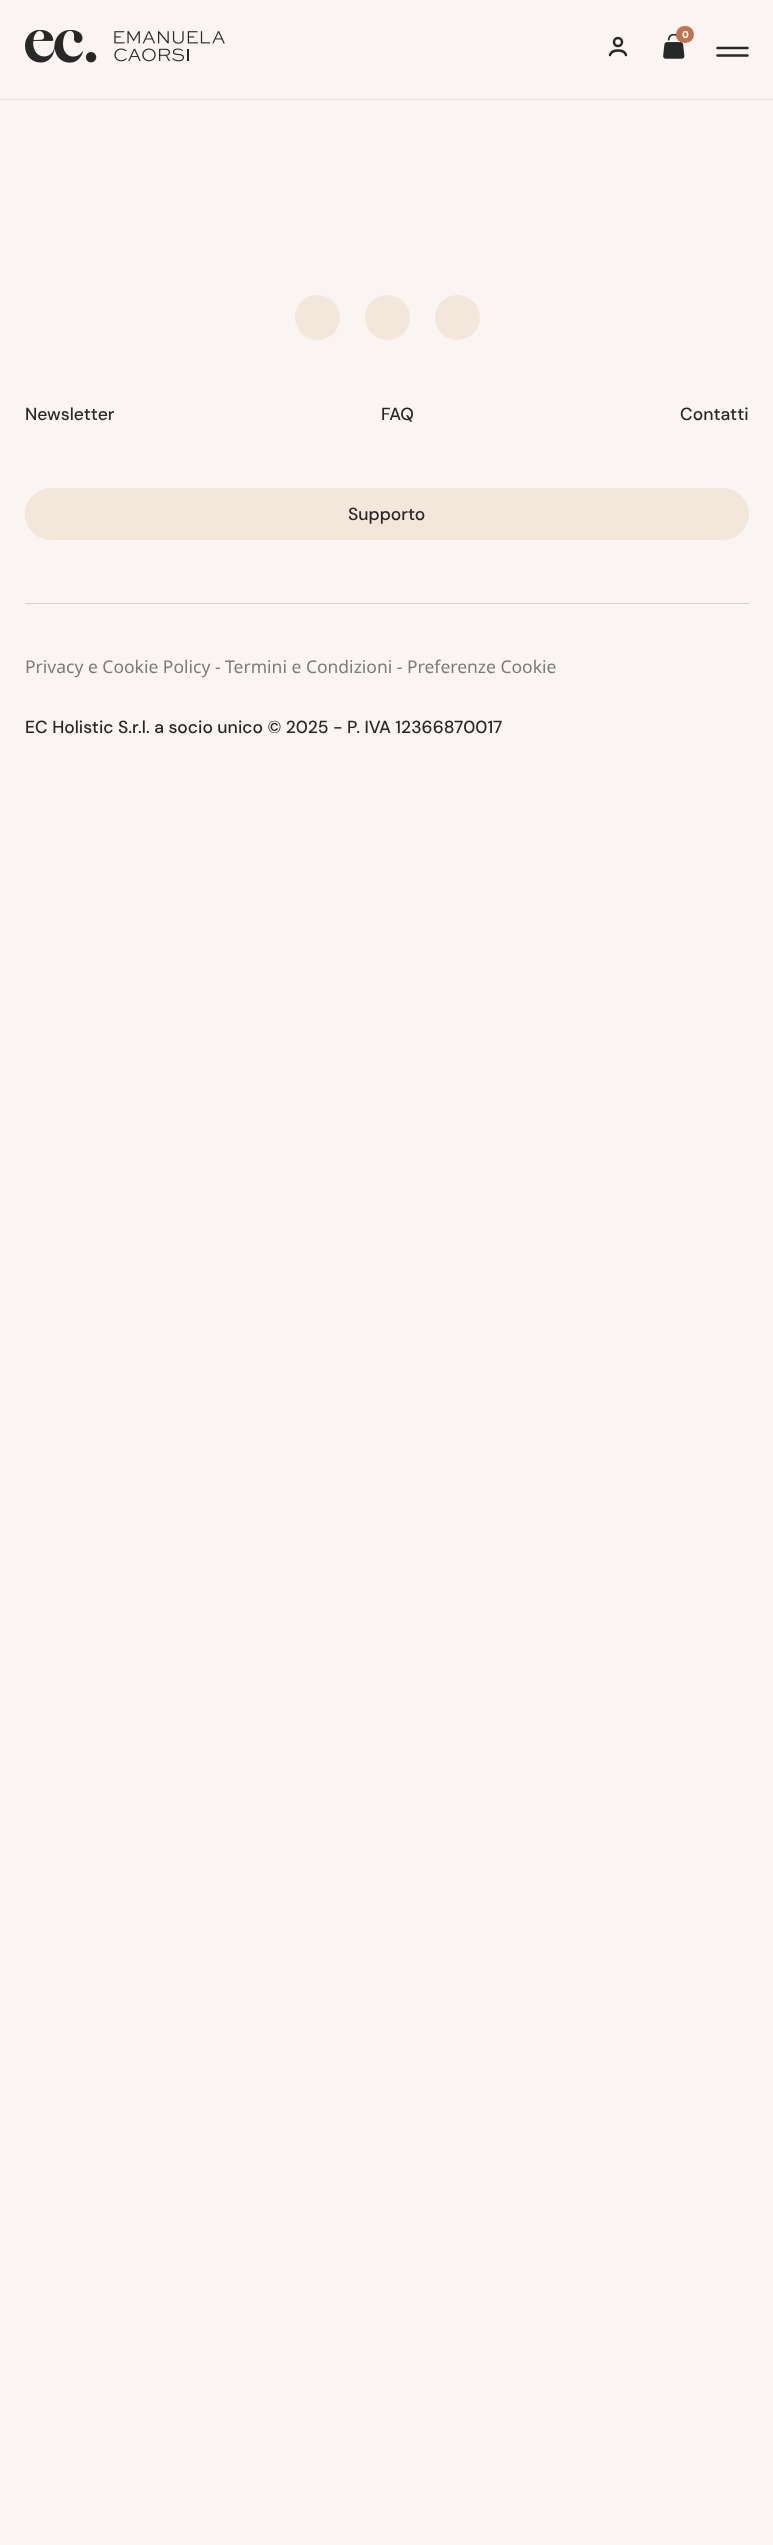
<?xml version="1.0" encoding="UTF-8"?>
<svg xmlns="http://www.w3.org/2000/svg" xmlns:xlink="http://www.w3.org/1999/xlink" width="773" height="2545">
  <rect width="100%" height="100%" fill="#faf5f2" />
  <rect y="99" width="773" height="1" fill="#e5e1de" />
  <image x="25" y="30" width="200" height="33" xlink:href="image1.png" />
  <image x="663" y="34" width="22" height="25" xlink:href="image2.png" />
  <rect x="676" y="26" width="18" height="17" rx="8.5" fill="#bf7350" />
  <circle cx="618" cy="42" r="4" fill="none" stroke="#282828" stroke-width="2.5" />
  <path d="M 626 55 c -2 -6 -14 -6 -16 0" fill="none" stroke="#282828" stroke-width="2.5" stroke-linecap="round" />
  <path d="M 717.5 55.5 h 30 m -30 -7.5 h 30" fill="none" stroke="#282828" stroke-width="2.5" stroke-linecap="round" />
  <rect x="25" y="603" width="724" height="1" fill="#d5d0ce" />
  <circle cx="317.5" cy="317.5" r="22.5" fill="#f3e7dc" />
  <circle cx="387.5" cy="317.5" r="22.5" fill="#f3e7dc" />
  <circle cx="457.5" cy="317.5" r="22.5" fill="#f3e7dc" />
  <rect x="25" y="488" width="724" height="52" rx="26" fill="#f3e7dc" />
  <text x="682" y="38" style="font-family: DM Sans; font-size: 10px; font-weight: 900; fill: #ffffff">0</text>
  <text x="25" y="420" style="font-family: DM Sans; font-size: 17.5px; font-weight: 500; fill: #282828">Newsletter</text>
  <text x="381" y="420" style="font-family: DM Sans; font-size: 17.5px; font-weight: 500; fill: #282828">FAQ</text>
  <text x="680" y="420" style="font-family: DM Sans; font-size: 17.5px; font-weight: 500; fill: #282828">Contatti</text>
  <text x="348" y="520" style="font-family: DM Sans; font-size: 17.5px; font-weight: 500; fill: #282828">Supporto</text>
  <text x="25" y="673" style="font-family: Noto Sans; font-size: 17.5px; fill: #7d7b79">Privacy e Cookie Policy - Termini e Condizioni - Preferenze Cookie</text>
  <text x="25" y="733" style="font-family: DM Sans; font-size: 17.5px; font-weight: 500; fill: #282828">EC Holistic S.r.l. a socio unico © 2025 - P. IVA 12366870017</text>
</svg>
